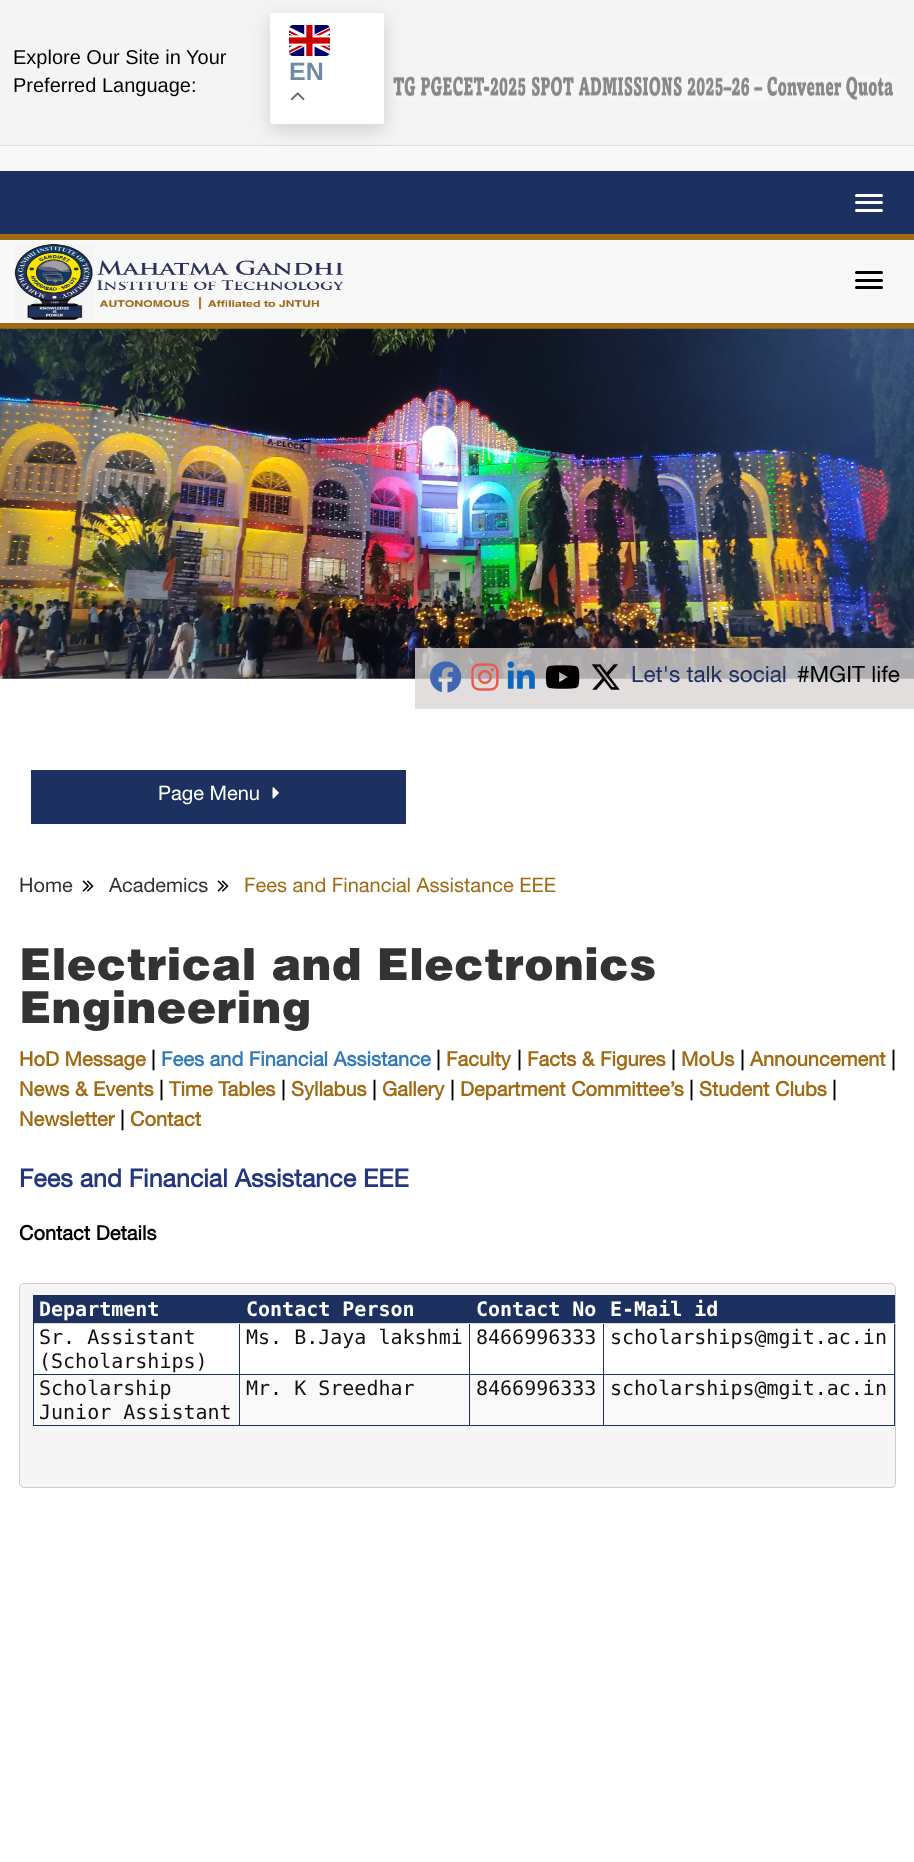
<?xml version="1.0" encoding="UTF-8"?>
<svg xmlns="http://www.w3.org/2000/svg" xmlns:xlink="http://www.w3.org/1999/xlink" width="914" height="1862">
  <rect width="100%" height="100%" fill="#f8f8f8" />
  <rect width="914" height="145" fill="#f4f4f4" />
  <rect y="145" width="914" height="1" fill="#dddddd" />
  <image x="393" y="76" width="501" height="25" xlink:href="image3.png" />
  <rect x="270" y="19" width="114" height="111" rx="2.5" fill="#000000" fill-opacity="0.15" filter="blur(9.5px)" />
  <rect x="270" y="13" width="114" height="111" rx="2.5" fill="#ffffff" />
  <image x="289" y="25" width="41" height="31" xlink:href="image1.png" />
  <image x="291" y="92" width="14" height="9" xlink:href="image2.png" />
  <rect y="171" width="914" height="63" fill="#1c3160" />
  <rect y="234" width="914" height="6" fill="#a16b15" />
  <rect x="855" y="194" width="28" height="3" rx="1.5" fill="#ffffff" />
  <rect x="855" y="201" width="28" height="3" rx="1.5" fill="#ffffff" />
  <rect x="855" y="209" width="28" height="3" rx="1.5" fill="#ffffff" />
  <rect y="323" width="914" height="6" fill="#a16b15" />
  <image x="14" y="244" width="330" height="76" xlink:href="image4.png" />
  <rect x="855" y="271" width="28" height="3" rx="1.5" fill="#000000" />
  <rect x="855" y="279" width="28" height="3" rx="1.5" fill="#000000" />
  <rect x="855" y="286" width="28" height="3" rx="1.5" fill="#000000" />
  <image x="0" y="328" width="914" height="351" xlink:href="image5.png" />
  <rect y="679" width="914" height="1183" fill="#ffffff" />
  <rect x="415" y="648" width="499" height="61" fill="#d9d5d4" fill-opacity="0.78" />
  <image x="430" y="661" width="32" height="32" xlink:href="image6.png" />
  <image x="471" y="663" width="28" height="28" xlink:href="image7.png" />
  <image x="507" y="661" width="28" height="28" xlink:href="image8.png" />
  <image x="545" y="665" width="35" height="24" xlink:href="image9.png" />
  <image x="591" y="664" width="29" height="26" xlink:href="image10.png" />
  <rect x="31" y="770" width="375" height="54" fill="#1c3160" />
  <image x="272" y="787" width="7" height="12" xlink:href="image11.png" />
  <image x="82" y="880" width="12" height="12" xlink:href="image12.png" />
  <image x="217" y="880" width="12" height="12" xlink:href="image12.png" />
  <rect x="19.5" y="1283.5" width="876" height="204" rx="4.5" fill="#f5f5f5" stroke="#cccccc" />
  <rect x="33" y="1295" width="862" height="1" fill="#1c3160" />
  <rect x="894" y="1295" width="1" height="79" fill="#1c3160" />
  <rect x="33" y="1425" width="862" height="1" fill="#1c3160" />
  <rect x="33" y="1324" width="1" height="102" fill="#1c3160" />
  <rect x="34" y="1296" width="205" height="27" fill="#1c3160" />
  <rect x="603" y="1374" width="1" height="52" fill="#1c3160" />
  <rect x="894" y="1374" width="1" height="52" fill="#1c3160" />
  <rect x="603" y="1374" width="292" height="1" fill="#1c3160" />
  <rect x="603" y="1323" width="1" height="52" fill="#1c3160" />
  <rect x="603" y="1323" width="292" height="1" fill="#dddddd" />
  <rect x="603" y="1295" width="1" height="29" fill="#1c3160" />
  <rect x="469" y="1374" width="1" height="52" fill="#1c3160" />
  <rect x="469" y="1374" width="135" height="1" fill="#1c3160" />
  <rect x="469" y="1323" width="1" height="52" fill="#1c3160" />
  <rect x="469" y="1323" width="135" height="1" fill="#dddddd" />
  <rect x="469" y="1295" width="1" height="29" fill="#1c3160" />
  <rect x="239" y="1374" width="1" height="52" fill="#1c3160" />
  <rect x="239" y="1374" width="231" height="1" fill="#1c3160" />
  <rect x="239" y="1323" width="1" height="52" fill="#1c3160" />
  <rect x="239" y="1323" width="231" height="1" fill="#dddddd" />
  <rect x="239" y="1295" width="1" height="29" fill="#1c3160" />
  <rect x="33" y="1323" width="207" height="1" fill="#dddddd" />
  <rect x="33" y="1295" width="1" height="29" fill="#1c3160" />
  <rect x="240" y="1296" width="229" height="27" fill="#1c3160" />
  <rect x="470" y="1296" width="133" height="27" fill="#1c3160" />
  <rect x="604" y="1296" width="290" height="27" fill="#1c3160" />
  <rect x="34" y="1324" width="205" height="50" fill="#ffffff" />
  <rect x="33" y="1374" width="207" height="1" fill="#1c3160" />
  <rect x="240" y="1324" width="229" height="50" fill="#ffffff" />
  <rect x="470" y="1324" width="133" height="50" fill="#ffffff" />
  <rect x="604" y="1324" width="290" height="50" fill="#ffffff" />
  <rect x="34" y="1375" width="205" height="50" fill="#f9f9f9" />
  <rect x="240" y="1375" width="229" height="50" fill="#f9f9f9" />
  <rect x="470" y="1375" width="133" height="50" fill="#f9f9f9" />
  <rect x="604" y="1375" width="290" height="50" fill="#f9f9f9" />
  <text x="13" y="64" style="font-family: Liberation Sans; font-size: 20px; fill: #000000">Explore Our Site in Your</text>
  <text x="289" y="80" style="font-family: Liberation Sans; font-size: 25px; font-weight: bold; fill: #6f8ba4">EN</text>
  <text x="13" y="92" style="font-family: Liberation Sans; font-size: 20px; fill: #000000">Preferred Language:</text>
  <text x="631" y="682" style="font-family: Helvetica Neue; font-size: 22.5px; fill: #1c3160">Let's talk social</text>
  <text x="797" y="682" style="font-family: Helvetica Neue; font-size: 22.5px; fill: #000000">#MGIT life</text>
  <text x="158" y="800" style="font-family: Helvetica Neue; font-size: 20px; fill: #ffffff">Page Menu</text>
  <text x="19" y="892" style="font-family: Helvetica Neue; font-size: 20px; fill: #333333">Home</text>
  <text x="109" y="892" style="font-family: Helvetica Neue; font-size: 20px; fill: #333333">Academics</text>
  <text x="244" y="892" style="font-family: Helvetica Neue; font-size: 20px; fill: #a16a15">Fees and Financial Assistance EEE</text>
  <text x="19" y="980" style="font-family: Helvetica; font-size: 45px; font-weight: 900; fill: #333333">Electrical and Electronics</text>
  <text x="19" y="1023" style="font-family: Helvetica; font-size: 45px; font-weight: 900; fill: #333333">Engineering</text>
  <text x="19" y="1066" style="font-family: Helvetica Neue; font-size: 20px; font-weight: bold; fill: #a16a15">HoD Message</text>
  <text x="151" y="1066" style="font-family: Helvetica Neue; font-size: 20px; font-weight: bold; fill: #000000">|</text>
  <text x="161" y="1066" style="font-family: Helvetica Neue; font-size: 20px; font-weight: bold; fill: #337ab7">Fees and Financial Assistance</text>
  <text x="436" y="1066" style="font-family: Helvetica Neue; font-size: 20px; font-weight: bold; fill: #000000">|</text>
  <text x="446" y="1066" style="font-family: Helvetica Neue; font-size: 20px; font-weight: bold; fill: #a16a15">Faculty</text>
  <text x="517" y="1066" style="font-family: Helvetica Neue; font-size: 20px; font-weight: bold; fill: #000000">|</text>
  <text x="527" y="1066" style="font-family: Helvetica Neue; font-size: 20px; font-weight: bold; fill: #a16a15">Facts &amp; Figures</text>
  <text x="671" y="1066" style="font-family: Helvetica Neue; font-size: 20px; font-weight: bold; fill: #000000">|</text>
  <text x="681" y="1066" style="font-family: Helvetica Neue; font-size: 20px; font-weight: bold; fill: #a16a15">MoUs</text>
  <text x="740" y="1066" style="font-family: Helvetica Neue; font-size: 20px; font-weight: bold; fill: #000000">|</text>
  <text x="750" y="1066" style="font-family: Helvetica Neue; font-size: 20px; font-weight: bold; fill: #a16a15">Announcement</text>
  <text x="891" y="1066" style="font-family: Helvetica Neue; font-size: 20px; font-weight: bold; fill: #000000">|</text>
  <text x="19" y="1096" style="font-family: Helvetica Neue; font-size: 20px; font-weight: bold; fill: #a16a15">News &amp; Events</text>
  <text x="159" y="1096" style="font-family: Helvetica Neue; font-size: 20px; font-weight: bold; fill: #000000">|</text>
  <text x="169" y="1096" style="font-family: Helvetica Neue; font-size: 20px; font-weight: bold; fill: #a16a15">Time Tables</text>
  <text x="281" y="1096" style="font-family: Helvetica Neue; font-size: 20px; font-weight: bold; fill: #000000">|</text>
  <text x="291" y="1096" style="font-family: Helvetica Neue; font-size: 20px; font-weight: bold; fill: #a16a15">Syllabus</text>
  <text x="372" y="1096" style="font-family: Helvetica Neue; font-size: 20px; font-weight: bold; fill: #000000">|</text>
  <text x="382" y="1096" style="font-family: Helvetica Neue; font-size: 20px; font-weight: bold; fill: #a16a15">Gallery</text>
  <text x="450" y="1096" style="font-family: Helvetica Neue; font-size: 20px; font-weight: bold; fill: #000000">|</text>
  <text x="460" y="1096" style="font-family: Helvetica Neue; font-size: 20px; font-weight: bold; fill: #a16a15">Department Committee’s</text>
  <text x="689" y="1096" style="font-family: Helvetica Neue; font-size: 20px; font-weight: bold; fill: #000000">|</text>
  <text x="699" y="1096" style="font-family: Helvetica Neue; font-size: 20px; font-weight: bold; fill: #a16a15">Student Clubs</text>
  <text x="832" y="1096" style="font-family: Helvetica Neue; font-size: 20px; font-weight: bold; fill: #000000">|</text>
  <text x="19" y="1126" style="font-family: Helvetica Neue; font-size: 20px; font-weight: bold; fill: #a16a15">Newsletter</text>
  <text x="120" y="1126" style="font-family: Helvetica Neue; font-size: 20px; font-weight: bold; fill: #000000">|</text>
  <text x="130" y="1126" style="font-family: Helvetica Neue; font-size: 20px; font-weight: bold; fill: #a16a15">Contact</text>
  <text x="19" y="1187" style="font-family: Helvetica Neue; font-size: 25px; font-weight: bold; fill: #23367f">Fees and Financial Assistance EEE</text>
  <text x="19" y="1240" style="font-family: Helvetica Neue; font-size: 20px; font-weight: bold; fill: #000000">Contact Details</text>
  <text x="39" y="1316" style="font-family: DejaVu Sans Mono; font-size: 20px; font-weight: bold; fill: #ffffff">Department</text>
  <text x="246" y="1316" style="font-family: DejaVu Sans Mono; font-size: 20px; font-weight: bold; fill: #ffffff">Contact Person</text>
  <text x="476" y="1316" style="font-family: DejaVu Sans Mono; font-size: 20px; font-weight: bold; fill: #ffffff">Contact No</text>
  <text x="610" y="1316" style="font-family: DejaVu Sans Mono; font-size: 20px; font-weight: bold; fill: #ffffff">E-Mail id</text>
  <text x="39" y="1344" style="font-family: DejaVu Sans Mono; font-size: 20px; fill: #111111">Sr. Assistant</text>
  <text x="39" y="1368" style="font-family: DejaVu Sans Mono; font-size: 20px; fill: #111111">(Scholarships)</text>
  <text x="246" y="1344" style="font-family: DejaVu Sans Mono; font-size: 20px; fill: #111111">Ms. B.Jaya lakshmi</text>
  <text x="476" y="1344" style="font-family: DejaVu Sans Mono; font-size: 20px; fill: #111111">8466996333</text>
  <text x="610" y="1344" style="font-family: DejaVu Sans Mono; font-size: 20px; fill: #111111">scholarships@mgit.ac.in</text>
  <text x="39" y="1395" style="font-family: DejaVu Sans Mono; font-size: 20px; fill: #111111">Scholarship</text>
  <text x="39" y="1419" style="font-family: DejaVu Sans Mono; font-size: 20px; fill: #111111">Junior Assistant</text>
  <text x="246" y="1395" style="font-family: DejaVu Sans Mono; font-size: 20px; fill: #111111">Mr. K Sreedhar</text>
  <text x="476" y="1395" style="font-family: DejaVu Sans Mono; font-size: 20px; fill: #111111">8466996333</text>
  <text x="610" y="1395" style="font-family: DejaVu Sans Mono; font-size: 20px; fill: #111111">scholarships@mgit.ac.in</text>
</svg>
